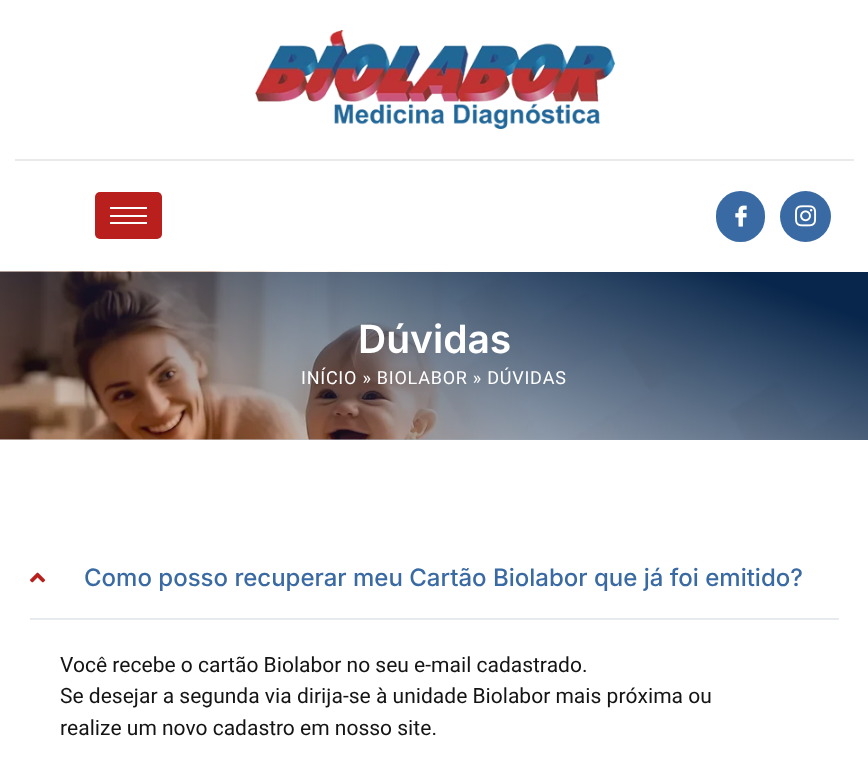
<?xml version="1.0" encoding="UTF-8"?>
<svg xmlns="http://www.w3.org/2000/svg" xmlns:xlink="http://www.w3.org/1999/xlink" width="868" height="769">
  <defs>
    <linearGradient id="g1" gradientUnits="userSpaceOnUse" x1="512" y1="142" x2="356" y2="569"><stop offset="0.1" stop-color="#08264b" /><stop offset="1" stop-color="#08264b" stop-opacity="0" /></linearGradient>
  </defs>
  <rect width="100%" height="100%" fill="#ffffff" />
  <rect x="15" y="159" width="839" height="2" fill="#eaeaea" />
  <image x="255" y="30" width="360" height="99" xlink:href="image1.png" />
  <rect x="95" y="192" width="67" height="47" rx="5" fill="#b81f1d" />
  <rect x="110" y="207" width="37" height="2" fill="#ffffff" />
  <rect x="110" y="215" width="37" height="2" fill="#ffffff" />
  <rect x="110" y="222" width="37" height="2" fill="#ffffff" />
  <rect x="716" y="191" width="49" height="51" rx="24.5" fill="#3a6aa3" />
  <image x="735" y="205" width="12" height="22" xlink:href="image2.png" />
  <circle cx="805.5" cy="216.5" r="25.5" fill="#3a6aa3" />
  <image x="795" y="205" width="22" height="22" xlink:href="image3.png" />
  <image x="0" y="271" width="868" height="169" xlink:href="image4.png" />
  <rect y="272" width="868" height="168" fill="url(#g1)" />
  <rect x="30" y="618" width="809" height="2" fill="#e7ebf0" />
  <image x="30" y="572" width="15" height="11" xlink:href="image5.png" />
  <text x="358" y="353" style="font-family: Inter; font-size: 39px; font-weight: 600; fill: #ffffff">Dúvidas</text>
  <text x="301" y="384" style="font-family: Heebo; font-size: 18px; letter-spacing: 0.75px; fill: #ffffff">INÍCIO » BIOLABOR » DÚVIDAS</text>
  <text x="84" y="586" style="font-family: Inter; font-size: 24px; font-weight: 500; fill: #3a6aa3">Como posso recuperar meu Cartão Biolabor que já foi emitido?</text>
  <text x="60" y="672" style="font-family: Heebo; font-size: 21px; fill: #141414">Você recebe o cartão Biolabor no seu e-mail cadastrado.</text>
  <text x="60" y="703" style="font-family: Heebo; font-size: 21px; fill: #141414">Se desejar a segunda via dirija-se à unidade Biolabor mais próxima ou</text>
  <text x="60" y="735" style="font-family: Heebo; font-size: 21px; fill: #141414">realize um novo cadastro em nosso site.</text>
</svg>
